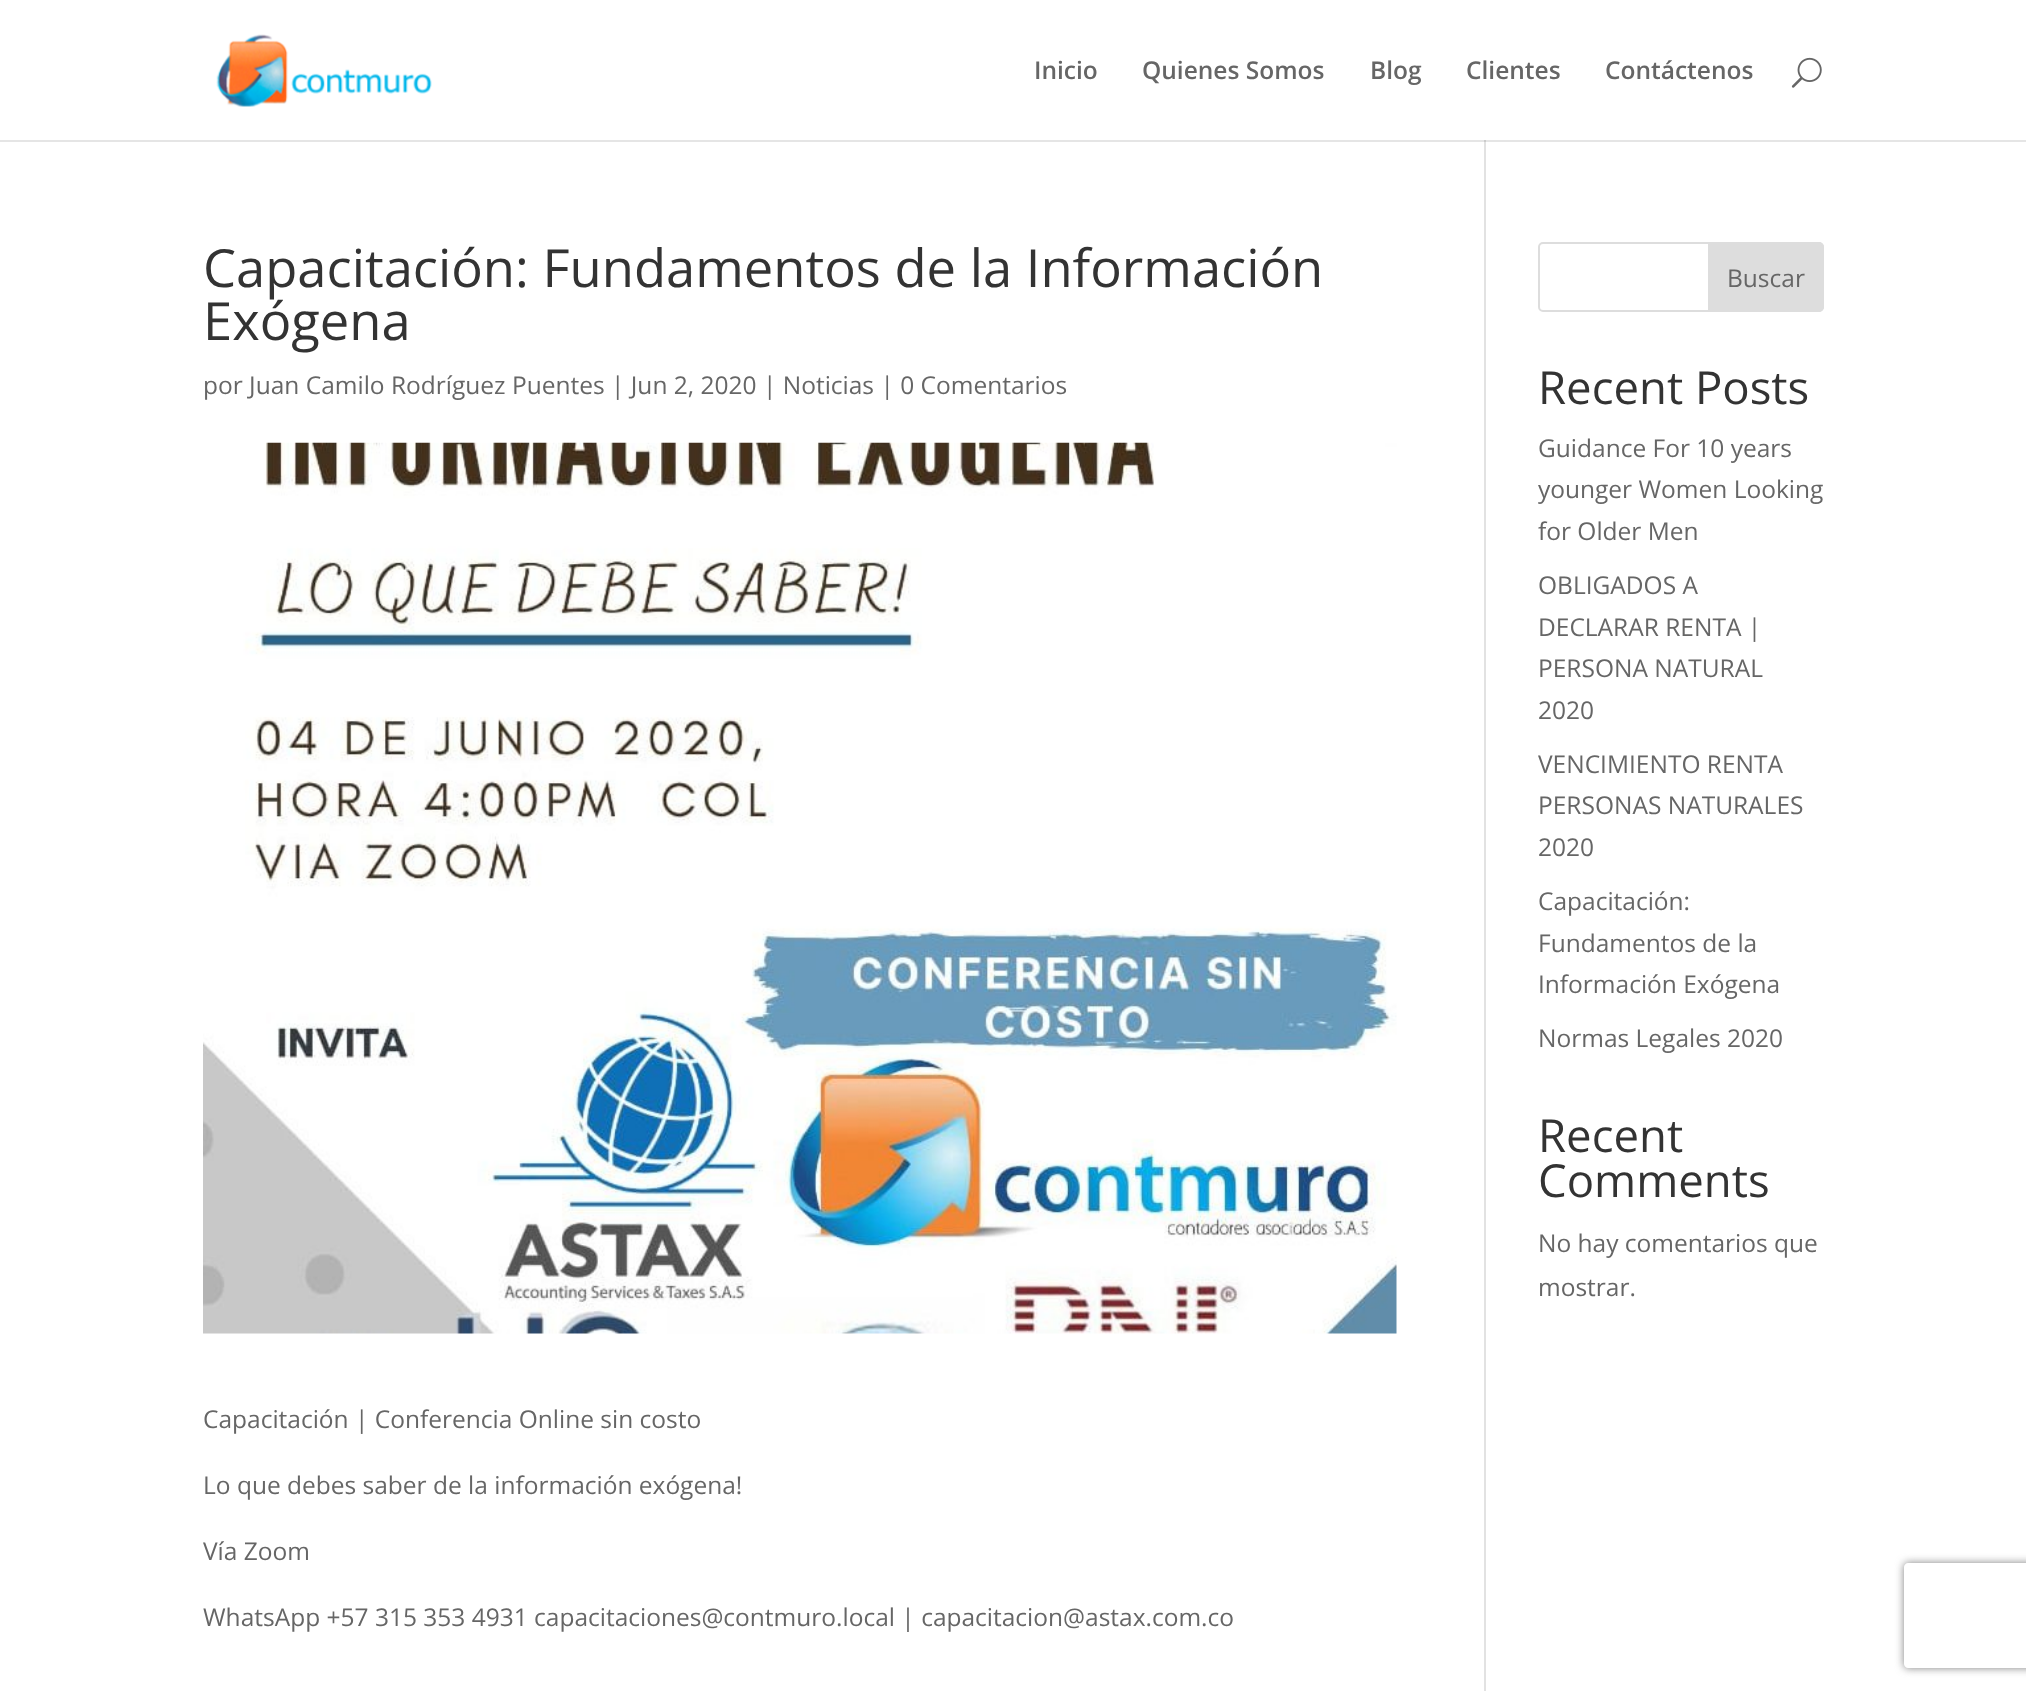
<?xml version="1.0" encoding="UTF-8"?>
<svg xmlns="http://www.w3.org/2000/svg" xmlns:xlink="http://www.w3.org/1999/xlink" width="2026" height="1691">
  <defs>
    <clipPath id="clip1"><path d="M 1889 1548 h 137 v 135 h -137 z m 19 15 h 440 c 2 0 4 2 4 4 v 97 c 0 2 -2 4 -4 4 h -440 c -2 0 -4 -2 -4 -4 v -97 c 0 -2 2 -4 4 -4 z" clip-rule="evenodd" /></clipPath>
  </defs>
  <rect width="100%" height="100%" fill="#ffffff" />
  <rect x="1484" y="140" width="2" height="1551" fill="#e2e2e2" />
  <path d="M 0 140 v 2 h 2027 v -140 h -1 v 138 z" fill="#000000" fill-opacity="0.1" />
  <image x="216" y="34" width="216" height="73" xlink:href="image1.png" />
  <image x="1791" y="57" width="31" height="31" xlink:href="image2.png" />
  <image x="203" y="442" width="1194" height="892" xlink:href="image3.png" />
  <rect x="1539" y="243" width="284" height="68" rx="4" fill="none" stroke="#dddddd" stroke-width="2" />
  <path d="M 1709 243 h 110 c 2 0 4 2 4 4 v 60 c 0 2 -2 4 -4 4 h -110 z" fill="#dddddd" stroke="#dddddd" stroke-width="2" />
  <g clip-path="url(#clip1)">
    <rect x="1904" y="1563" width="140" height="105" rx="4" fill="#808080" filter="blur(4.5px)" />
  </g>
  <text x="1034" y="79" style="font-family: Open Sans; font-size: 24.5px; font-weight: 600; fill: #666666">Inicio</text>
  <text x="1142" y="79" style="font-family: Open Sans; font-size: 24.5px; font-weight: 600; fill: #666666">Quienes Somos</text>
  <text x="1370" y="79" style="font-family: Open Sans; font-size: 24.5px; font-weight: 600; fill: #666666">Blog</text>
  <text x="1466" y="79" style="font-family: Open Sans; font-size: 24.5px; font-weight: 600; fill: #666666">Clientes</text>
  <text x="1605" y="79" style="font-family: Open Sans; font-size: 24.5px; font-weight: 600; fill: #666666">Contáctenos</text>
  <text x="203" y="287" style="font-family: Open Sans; font-size: 52.5px; fill: #333333">Capacitación: Fundamentos de la Información</text>
  <text x="203" y="340" style="font-family: Open Sans; font-size: 52.5px; fill: #333333">Exógena</text>
  <text x="203" y="394" style="font-family: Open Sans; font-size: 24.5px; fill: #666666">por Juan Camilo Rodríguez Puentes | Jun 2, 2020 | Noticias | 0 Comentarios</text>
  <text x="203" y="1428" style="font-family: Open Sans; font-size: 24.5px; fill: #666666">Capacitación | Conferencia Online sin costo</text>
  <text x="203" y="1494" style="font-family: Open Sans; font-size: 24.5px; fill: #666666">Lo que debes saber de la información exógena!</text>
  <text x="203" y="1560" style="font-family: Open Sans; font-size: 24.5px; fill: #666666">Vía Zoom</text>
  <text x="203" y="1626" style="font-family: Open Sans; font-size: 24.5px; fill: #666666">WhatsApp +57 315 353 4931 capacitaciones@contmuro.local | capacitacion@astax.com.co</text>
  <text x="1727" y="287" style="font-family: Open Sans; font-size: 24.5px; fill: #666666">Buscar</text>
  <text x="1538" y="404" style="font-family: Open Sans; font-size: 45.5px; fill: #333333">Recent Posts</text>
  <text x="1538" y="457" style="font-family: Open Sans; font-size: 24.5px; fill: #666666">Guidance For 10 years</text>
  <text x="1538" y="498" style="font-family: Open Sans; font-size: 24.5px; fill: #666666">younger Women Looking</text>
  <text x="1538" y="540" style="font-family: Open Sans; font-size: 24.5px; fill: #666666">for Older Men</text>
  <text x="1538" y="594" style="font-family: Open Sans; font-size: 24.5px; fill: #666666">OBLIGADOS A</text>
  <text x="1538" y="636" style="font-family: Open Sans; font-size: 24.5px; fill: #666666">DECLARAR RENTA |</text>
  <text x="1538" y="677" style="font-family: Open Sans; font-size: 24.5px; fill: #666666">PERSONA NATURAL</text>
  <text x="1538" y="719" style="font-family: Open Sans; font-size: 24.5px; fill: #666666">2020</text>
  <text x="1538" y="773" style="font-family: Open Sans; font-size: 24.5px; fill: #666666">VENCIMIENTO RENTA</text>
  <text x="1538" y="814" style="font-family: Open Sans; font-size: 24.5px; fill: #666666">PERSONAS NATURALES</text>
  <text x="1538" y="856" style="font-family: Open Sans; font-size: 24.5px; fill: #666666">2020</text>
  <text x="1538" y="910" style="font-family: Open Sans; font-size: 24.5px; fill: #666666">Capacitación:</text>
  <text x="1538" y="952" style="font-family: Open Sans; font-size: 24.5px; fill: #666666">Fundamentos de la</text>
  <text x="1538" y="993" style="font-family: Open Sans; font-size: 24.5px; fill: #666666">Información Exógena</text>
  <text x="1538" y="1047" style="font-family: Open Sans; font-size: 24.5px; fill: #666666">Normas Legales 2020</text>
  <text x="1538" y="1152" style="font-family: Open Sans; font-size: 45.5px; fill: #333333">Recent</text>
  <text x="1538" y="1197" style="font-family: Open Sans; font-size: 45.5px; fill: #333333">Comments</text>
  <text x="1538" y="1252" style="font-family: Open Sans; font-size: 24.5px; fill: #666666">No hay comentarios que</text>
  <text x="1538" y="1296" style="font-family: Open Sans; font-size: 24.5px; fill: #666666">mostrar.</text>
</svg>
